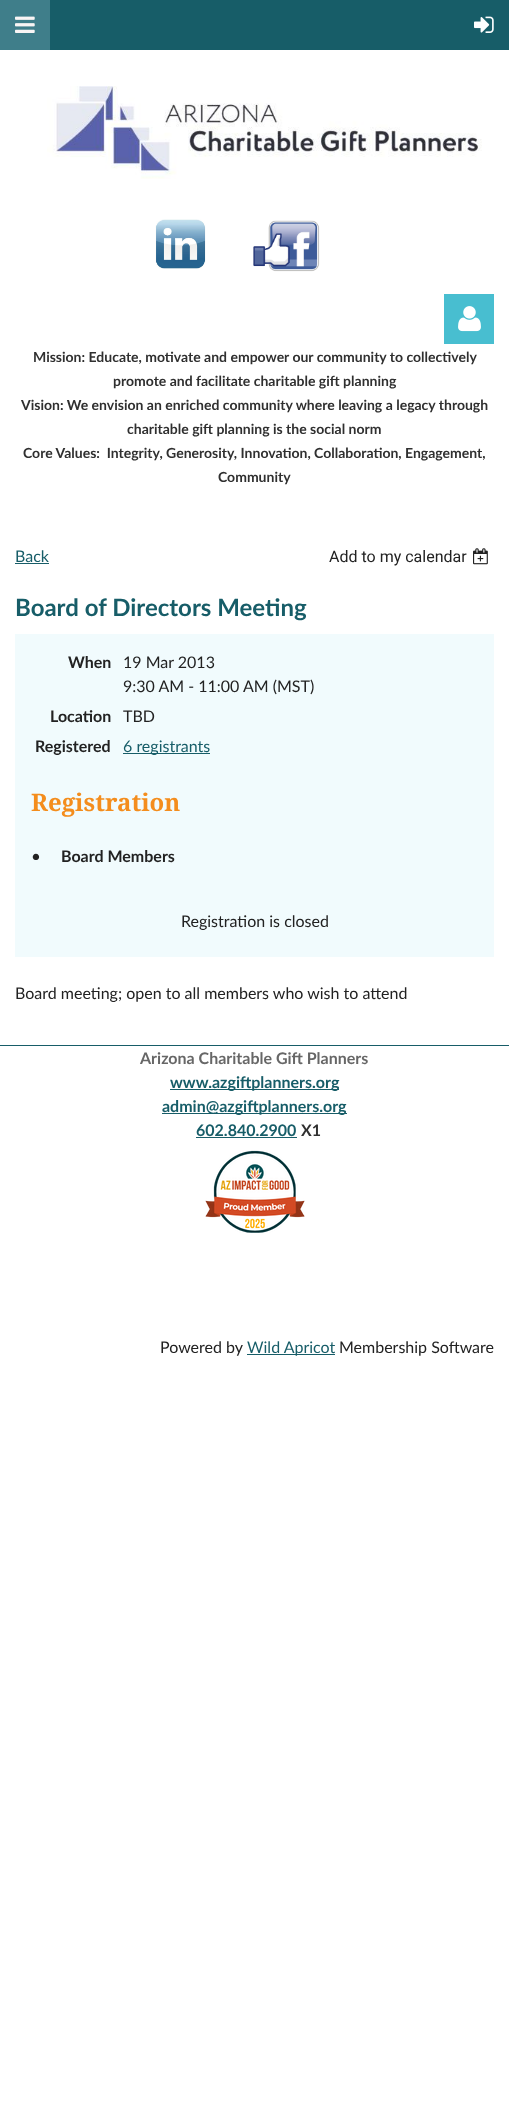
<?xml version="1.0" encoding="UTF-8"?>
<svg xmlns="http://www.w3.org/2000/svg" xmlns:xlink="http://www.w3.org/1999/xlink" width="509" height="2115">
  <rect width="100%" height="100%" fill="#ffffff" />
  <rect x="50" width="459" height="50" fill="#175d68" />
  <rect width="50" height="50" fill="#3f7e8a" />
  <image x="15" y="16" width="20" height="17" xlink:href="image1.png" />
  <image x="474" y="16" width="20" height="17" xlink:href="image2.png" />
  <image x="47" y="86" width="435" height="93" xlink:href="image3.png" />
  <image x="155" y="219" width="51" height="50" xlink:href="image4.png" />
  <image x="253" y="220" width="67" height="52" xlink:href="image5.png" />
  <rect x="444" y="294" width="50" height="50" fill="#48bed0" />
  <image x="458" y="306" width="23" height="26" xlink:href="image6.png" />
  <rect x="15" y="563" width="34" height="1" fill="#175d68" />
  <image x="473" y="548" width="15" height="17" xlink:href="image7.png" />
  <rect x="15" y="634" width="479" height="323" fill="#f1fbfd" />
  <rect x="123" y="753" width="87" height="1" fill="#175d68" />
  <rect y="1045" width="509" height="1" fill="#175d68" />
  <rect x="170" y="1089" width="169" height="1" fill="#175d68" />
  <rect x="162" y="1113" width="185" height="1" fill="#175d68" />
  <rect x="196" y="1137" width="101" height="1" fill="#175d68" />
  <image x="205" y="1150" width="100" height="83" xlink:href="image8.png" />
  <rect x="247" y="1354" width="88" height="1" fill="#175d68" />
  <text x="33" y="362" style="font-family: Lato; font-size: 14px; font-weight: bold; fill: #303030">Mission: Educate, motivate and empower our community to collectively</text>
  <text x="113" y="386" style="font-family: Lato; font-size: 14px; font-weight: bold; fill: #303030">promote and facilitate charitable gift planning</text>
  <text x="21" y="410" style="font-family: Lato; font-size: 14px; font-weight: bold; fill: #303030">Vision: We envision an enriched community where leaving a legacy through</text>
  <text x="127" y="434" style="font-family: Lato; font-size: 14px; font-weight: bold; fill: #303030">charitable gift planning is the social norm</text>
  <text x="23" y="458" style="font-family: Lato; font-size: 14px; font-weight: bold; fill: #303030" xml:space="preserve">Core Values:  Integrity, Generosity, Innovation, Collaboration, Engagement,</text>
  <text x="218" y="482" style="font-family: Lato; font-size: 14px; font-weight: bold; fill: #303030">Community</text>
  <text x="15" y="562" style="font-family: Lato; font-size: 16px; fill: #175d68">Back</text>
  <text x="329" y="562" style="font-family: Roboto; font-size: 16px; fill: #222222">Add to my calendar</text>
  <text x="15" y="616" style="font-family: Lato; font-size: 24px; font-weight: bold; fill: #175d68">Board of Directors Meeting</text>
  <text x="68" y="668" style="font-family: Lato; font-size: 16px; font-weight: bold; fill: #222222">When</text>
  <text x="123" y="668" style="font-family: Lato; font-size: 16px; fill: #222222">19 Mar 2013</text>
  <text x="123" y="692" style="font-family: Lato; font-size: 16px; fill: #222222">9:30 AM - 11:00 AM (MST)</text>
  <text x="50" y="722" style="font-family: Lato; font-size: 16px; font-weight: bold; fill: #222222">Location</text>
  <text x="123" y="722" style="font-family: Lato; font-size: 16px; fill: #222222">TBD</text>
  <text x="35" y="752" style="font-family: Lato; font-size: 16px; font-weight: bold; fill: #222222">Registered</text>
  <text x="123" y="752" style="font-family: Lato; font-size: 16px; fill: #175d68">6 registrants</text>
  <text x="31" y="811" style="font-family: Droid Serif; font-size: 24px; font-weight: bold; fill: #f48d1d">Registration</text>
  <text x="31" y="862" style="font-family: Lato; font-size: 17px; fill: #222222">•</text>
  <text x="61" y="862" style="font-family: Lato; font-size: 16px; font-weight: bold; fill: #222222">Board Members</text>
  <text x="181" y="927" style="font-family: Lato; font-size: 16px; fill: #222222">Registration is closed</text>
  <text x="15" y="999" style="font-family: Lato; font-size: 16px; fill: #222222">Board meeting; open to all members who wish to attend</text>
  <text x="140" y="1064" style="font-family: Lato; font-size: 16px; font-weight: bold; fill: #676767">Arizona Charitable Gift Planners</text>
  <text x="170" y="1088" style="font-family: Lato; font-size: 16px; font-weight: bold; fill: #175d68">www.azgiftplanners.org</text>
  <text x="162" y="1112" style="font-family: Lato; font-size: 16px; font-weight: bold; fill: #175d68">admin@azgiftplanners.org</text>
  <text x="196" y="1136" style="font-family: Lato; font-size: 16px; font-weight: bold; fill: #175d68">602.840.2900</text>
  <text x="301" y="1136" style="font-family: Lato; font-size: 16px; font-weight: bold; fill: #303030">X1</text>
  <text x="160" y="1353" style="font-family: Lato; font-size: 16px; fill: #222222">Powered by</text>
  <text x="247" y="1353" style="font-family: Lato; font-size: 16px; fill: #175d68">Wild Apricot</text>
  <text x="339" y="1353" style="font-family: Lato; font-size: 16px; fill: #222222">Membership Software</text>
</svg>
